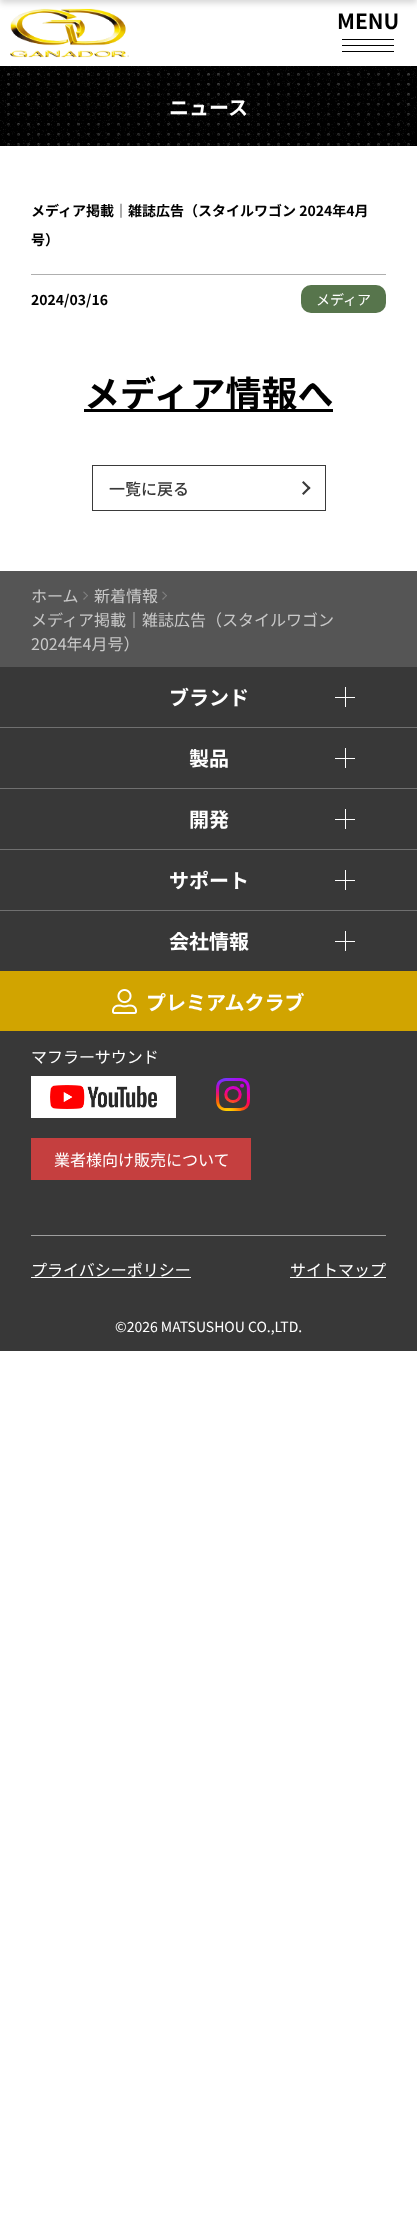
<?xml version="1.0" encoding="UTF-8"?>
<svg xmlns="http://www.w3.org/2000/svg" xmlns:xlink="http://www.w3.org/1999/xlink" width="417" height="2219">
  <rect width="100%" height="100%" fill="#ffffff" />
  <image x="10" y="8" width="119" height="50" xlink:href="image1.png" />
  <rect y="-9" width="417" height="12" fill="#000000" fill-opacity="0.16" filter="blur(3px)" />
  <rect x="342" y="45" width="52" height="1" fill="#000000" />
  <rect x="342" y="39" width="52" height="1" fill="#000000" />
  <rect x="342" y="51" width="52" height="1" fill="#000000" />
  <rect y="66" width="417" height="80" fill="#000000" />
  <image x="0" y="66" width="417" height="80" xlink:href="image2.png" />
  <rect x="31" y="274" width="355" height="1" fill="#afafaf" />
  <rect x="301" y="285" width="85" height="28" rx="10" fill="#57754c" />
  <rect x="84" y="409" width="249" height="3" fill="#000000" />
  <rect x="92.5" y="465.5" width="233" height="45" fill="none" stroke="#3a3a3a" />
  <path d="M 302 482.5 l 1.5 -1.5 l 7 7 l -1.5 1.5 z" fill="#3a3a3a" />
  <path d="M 302 493.5 l 7 -7 l 1.5 1.5 l -7 7 z" fill="#3a3a3a" />
  <rect y="571" width="417" height="96" fill="#555555" />
  <path d="M 83 592 l 1 -0.5 l 4 4 l -0.5 1 z" fill="#818181" />
  <path d="M 83 599 l 4.5 -4 l 0.5 0.5 l -4 4.5 z" fill="#818181" />
  <path d="M 162 592 l 1 -0.5 l 4 4 l -0.5 1 z" fill="#818181" />
  <path d="M 162 599 l 4.5 -4 l 0.5 0.5 l -4 4.5 z" fill="#818181" />
  <rect y="667" width="417" height="684" fill="#383838" />
  <rect y="727" width="417" height="1" fill="#707070" />
  <rect x="335" y="697" width="20" height="1" fill="#ffffff" />
  <rect x="345" y="687" width="1" height="20" fill="#ffffff" />
  <rect y="788" width="417" height="1" fill="#707070" />
  <rect x="335" y="758" width="20" height="1" fill="#ffffff" />
  <rect x="345" y="748" width="1" height="20" fill="#ffffff" />
  <rect y="849" width="417" height="1" fill="#707070" />
  <rect x="335" y="819" width="20" height="1" fill="#ffffff" />
  <rect x="345" y="809" width="1" height="20" fill="#ffffff" />
  <rect y="910" width="417" height="1" fill="#707070" />
  <rect x="335" y="880" width="20" height="1" fill="#ffffff" />
  <rect x="345" y="870" width="1" height="20" fill="#ffffff" />
  <rect x="335" y="941" width="20" height="1" fill="#ffffff" />
  <rect x="345" y="931" width="1" height="20" fill="#ffffff" />
  <rect y="971" width="417" height="60" fill="#d1a400" />
  <image x="112" y="989" width="25" height="25" xlink:href="image3.png" />
  <rect x="31" y="1076" width="145" height="42" fill="#ffffff" />
  <image x="50" y="1085" width="107" height="24" xlink:href="image4.png" />
  <image x="216" y="1078" width="34" height="33" xlink:href="image5.png" />
  <rect x="31" y="1138" width="220" height="42" fill="#c53f3f" />
  <rect x="31" y="1235" width="355" height="1" fill="#9f9f9f" />
  <rect x="31" y="1277" width="160" height="1" fill="#ffffff" />
  <rect x="290" y="1277" width="96" height="1" fill="#ffffff" />
  <text x="337" y="29" style="font-family: Noto Sans JP; font-size: 21px; font-weight: bold; fill: #000000">MENU</text>
  <text x="169" y="115" style="font-family: Noto Sans JP; font-size: 20px; font-weight: bold; fill: #ffffff">ニュース</text>
  <text x="31" y="216" style="font-family: Noto Sans JP; font-size: 14px; font-weight: bold; fill: #000000">メディア掲載｜雑誌広告（スタイルワゴン 2024年4月</text>
  <text x="31" y="245" style="font-family: Noto Sans JP; font-size: 14px; font-weight: bold; fill: #000000">号）</text>
  <text x="31" y="305" style="font-family: Noto Sans JP; font-size: 14px; font-weight: bold; fill: #000000">2024/03/16</text>
  <text x="316" y="305" style="font-family: Noto Sans JP; font-size: 14px; fill: #ffffff">メディア</text>
  <text x="84" y="407" style="font-family: Noto Sans JP; font-size: 36px; font-weight: bold; fill: #000000">メディア情報へ</text>
  <text x="109" y="495" style="font-family: Noto Sans JP; font-size: 16px; font-weight: 500; fill: #3a3a3a">一覧に戻る</text>
  <text x="31" y="602" style="font-family: Noto Sans JP; font-size: 16px; fill: #c9c9c9">ホーム</text>
  <text x="94" y="602" style="font-family: Noto Sans JP; font-size: 16px; fill: #c9c9c9">新着情報</text>
  <text x="31" y="626" style="font-family: Noto Sans JP; font-size: 16px; fill: #c9c9c9">メディア掲載｜雑誌広告（スタイルワゴン</text>
  <text x="31" y="650" style="font-family: Noto Sans JP; font-size: 16px; fill: #c9c9c9">2024年4月号）</text>
  <text x="169" y="705" style="font-family: Noto Sans JP; font-size: 20px; font-weight: bold; fill: #ffffff">ブランド</text>
  <text x="189" y="766" style="font-family: Noto Sans JP; font-size: 20px; font-weight: bold; fill: #ffffff">製品</text>
  <text x="189" y="827" style="font-family: Noto Sans JP; font-size: 20px; font-weight: bold; fill: #ffffff">開発</text>
  <text x="169" y="888" style="font-family: Noto Sans JP; font-size: 20px; font-weight: bold; fill: #ffffff">サポート</text>
  <text x="169" y="949" style="font-family: Noto Sans JP; font-size: 20px; font-weight: bold; fill: #ffffff">会社情報</text>
  <text x="146" y="1010" style="font-family: Noto Sans JP; font-size: 20px; font-weight: bold; fill: #ffffff">プレミアムクラブ</text>
  <text x="31" y="1063" style="font-family: Noto Sans JP; font-size: 16px; fill: #ffffff">マフラーサウンド</text>
  <text x="54" y="1166" style="font-family: Noto Sans JP; font-size: 16px; fill: #ffffff">業者様向け販売について</text>
  <text x="31" y="1276" style="font-family: Noto Sans JP; font-size: 16px; fill: #ffffff">プライバシーポリシー</text>
  <text x="290" y="1276" style="font-family: Noto Sans JP; font-size: 16px; fill: #ffffff">サイトマップ</text>
  <text x="115" y="1332" style="font-family: Noto Sans JP; font-size: 14px; fill: #ffffff">©2026 MATSUSHOU CO.,LTD.</text>
</svg>
